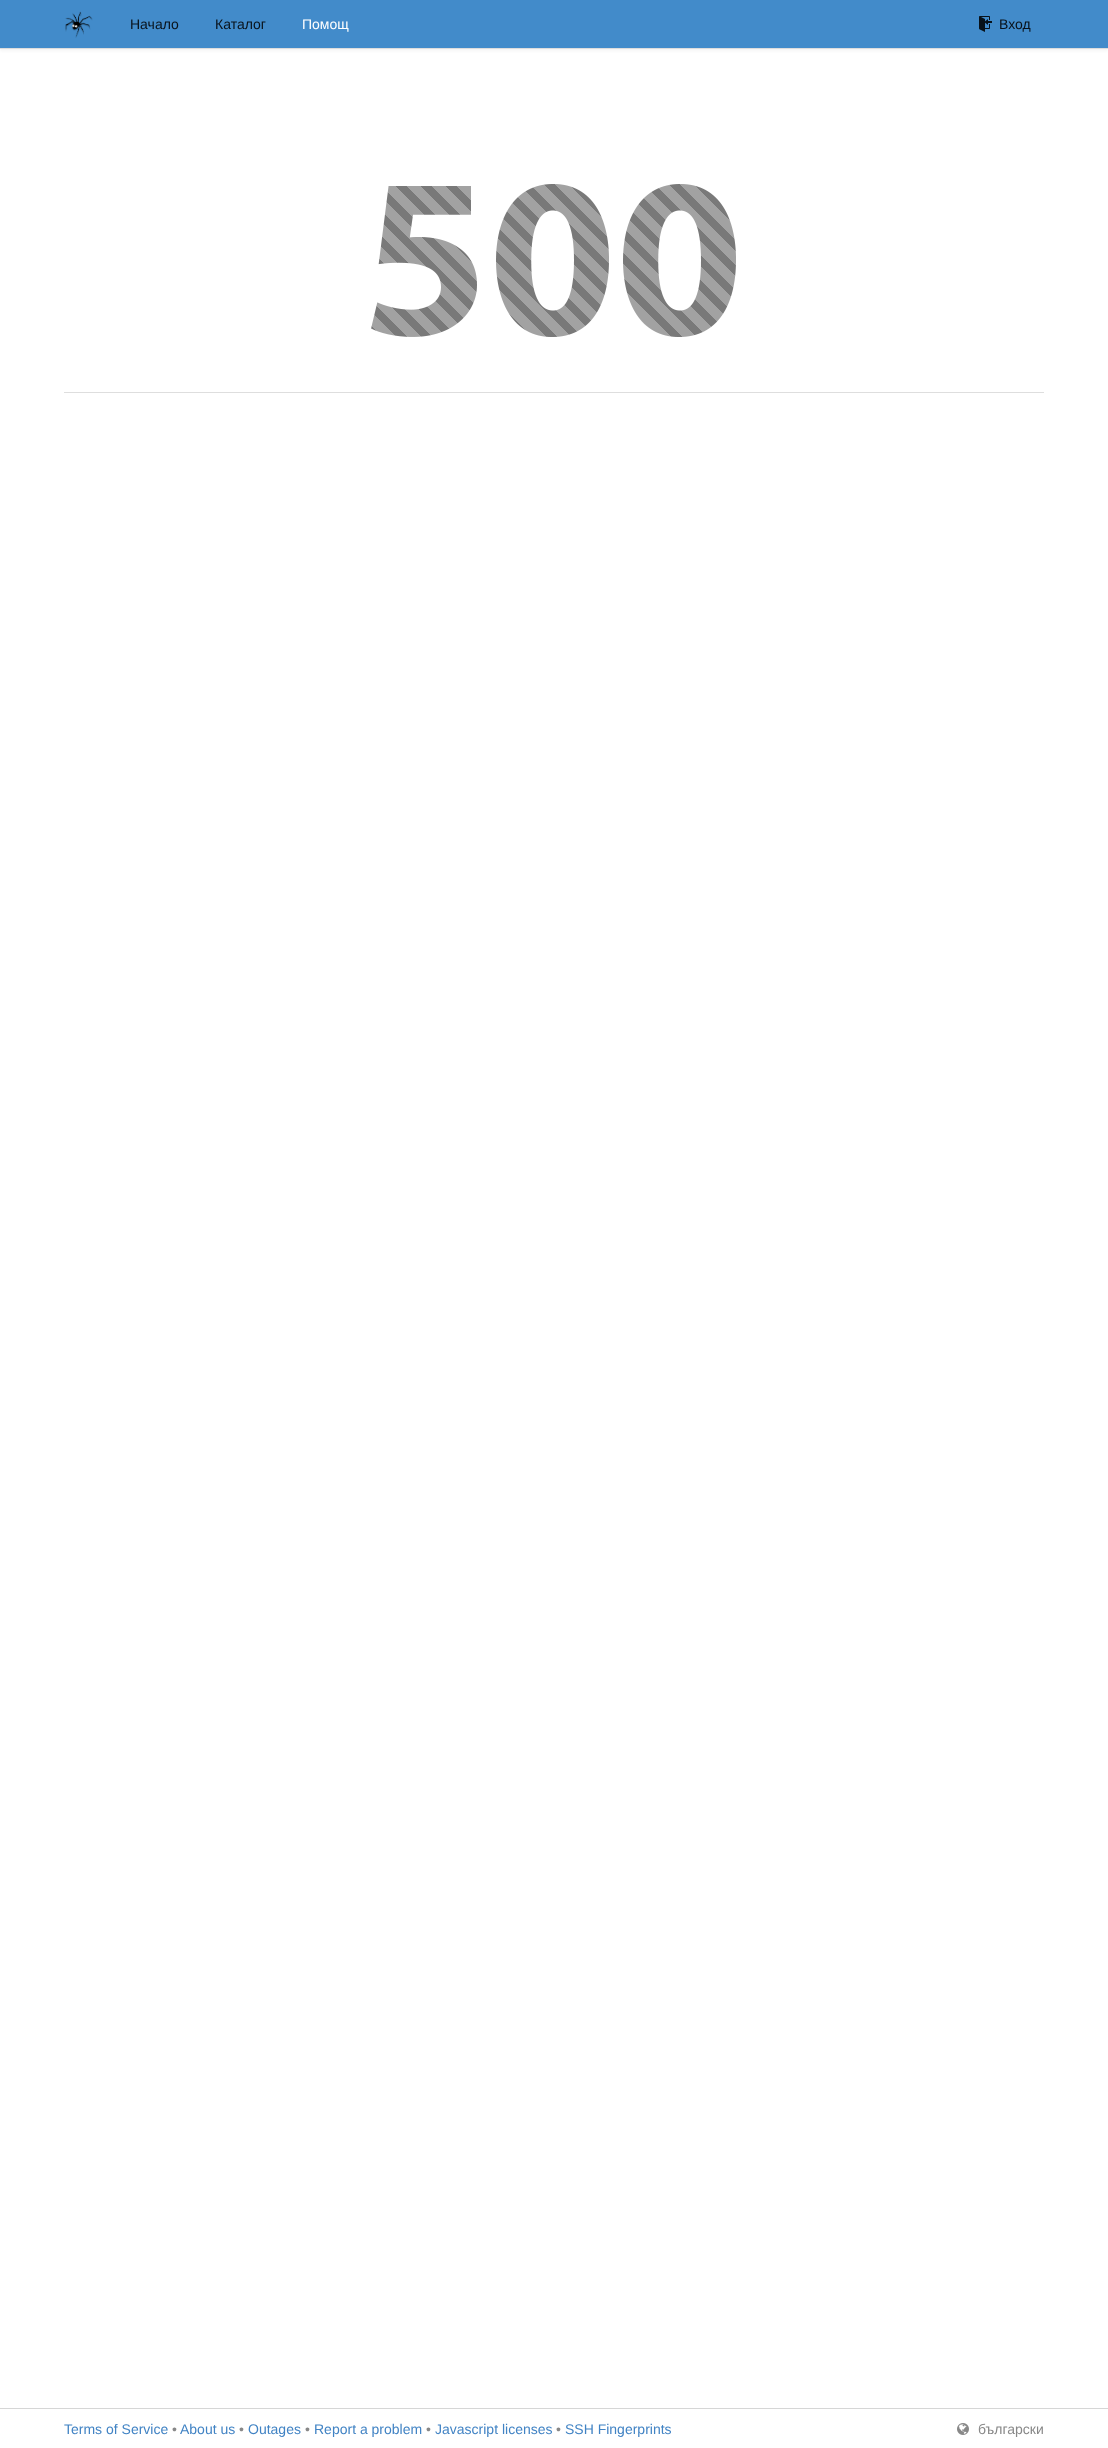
<?xml version="1.0" encoding="UTF-8"?>
<svg xmlns="http://www.w3.org/2000/svg" xmlns:xlink="http://www.w3.org/1999/xlink" width="1108" height="2448">
  <rect width="100%" height="100%" fill="#ffffff" />
  <rect y="-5" width="1108" height="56" fill="#000000" fill-opacity="0.04" filter="blur(1.5px)" />
  <rect width="1108" height="48" fill="#428bca" />
  <rect y="48" width="1108" height="1" fill="#dddddd" />
  <image x="65" y="11" width="28" height="27" xlink:href="image1.png" />
  <image x="979" y="16" width="13" height="16" xlink:href="image2.png" />
  <image x="371" y="184" width="365" height="153" xlink:href="image3.png" />
  <rect x="64" y="392" width="980" height="1" fill="#dedede" />
  <rect y="2408" width="1108" height="1" fill="#d6d6d6" />
  <image x="957" y="2423" width="12" height="12" xlink:href="image4.png" />
  <text x="130" y="29" style="font-family: Liberation Sans; font-size: 14px; fill: #09121a">Начало</text>
  <text x="215" y="29" style="font-family: Liberation Sans; font-size: 14px; fill: #09121a">Каталог</text>
  <text x="302" y="29" style="font-family: Liberation Sans; font-size: 14px; fill: #ffffff">Помощ</text>
  <text x="999" y="29" style="font-family: Liberation Sans; font-size: 14px; fill: #09121a">Вход</text>
  <text x="64" y="2434" style="font-family: Liberation Sans; font-size: 14px; fill: #4183c4">Terms of Service</text>
  <text x="172" y="2434" style="font-family: Liberation Sans; font-size: 14px; fill: #888888">•</text>
  <text x="180" y="2434" style="font-family: Liberation Sans; font-size: 14px; fill: #4183c4">About us</text>
  <text x="239" y="2434" style="font-family: Liberation Sans; font-size: 14px; fill: #888888">•</text>
  <text x="248" y="2434" style="font-family: Liberation Sans; font-size: 14px; fill: #4183c4">Outages</text>
  <text x="305" y="2434" style="font-family: Liberation Sans; font-size: 14px; fill: #888888">•</text>
  <text x="314" y="2434" style="font-family: Liberation Sans; font-size: 14px; fill: #4183c4">Report a problem</text>
  <text x="426" y="2434" style="font-family: Liberation Sans; font-size: 14px; fill: #888888">•</text>
  <text x="435" y="2434" style="font-family: Liberation Sans; font-size: 14px; fill: #4183c4">Javascript licenses</text>
  <text x="556" y="2434" style="font-family: Liberation Sans; font-size: 14px; fill: #888888">•</text>
  <text x="565" y="2434" style="font-family: Liberation Sans; font-size: 14px; fill: #4183c4">SSH Fingerprints</text>
  <text x="978" y="2434" style="font-family: Liberation Sans; font-size: 14px; fill: #888888">български</text>
</svg>
